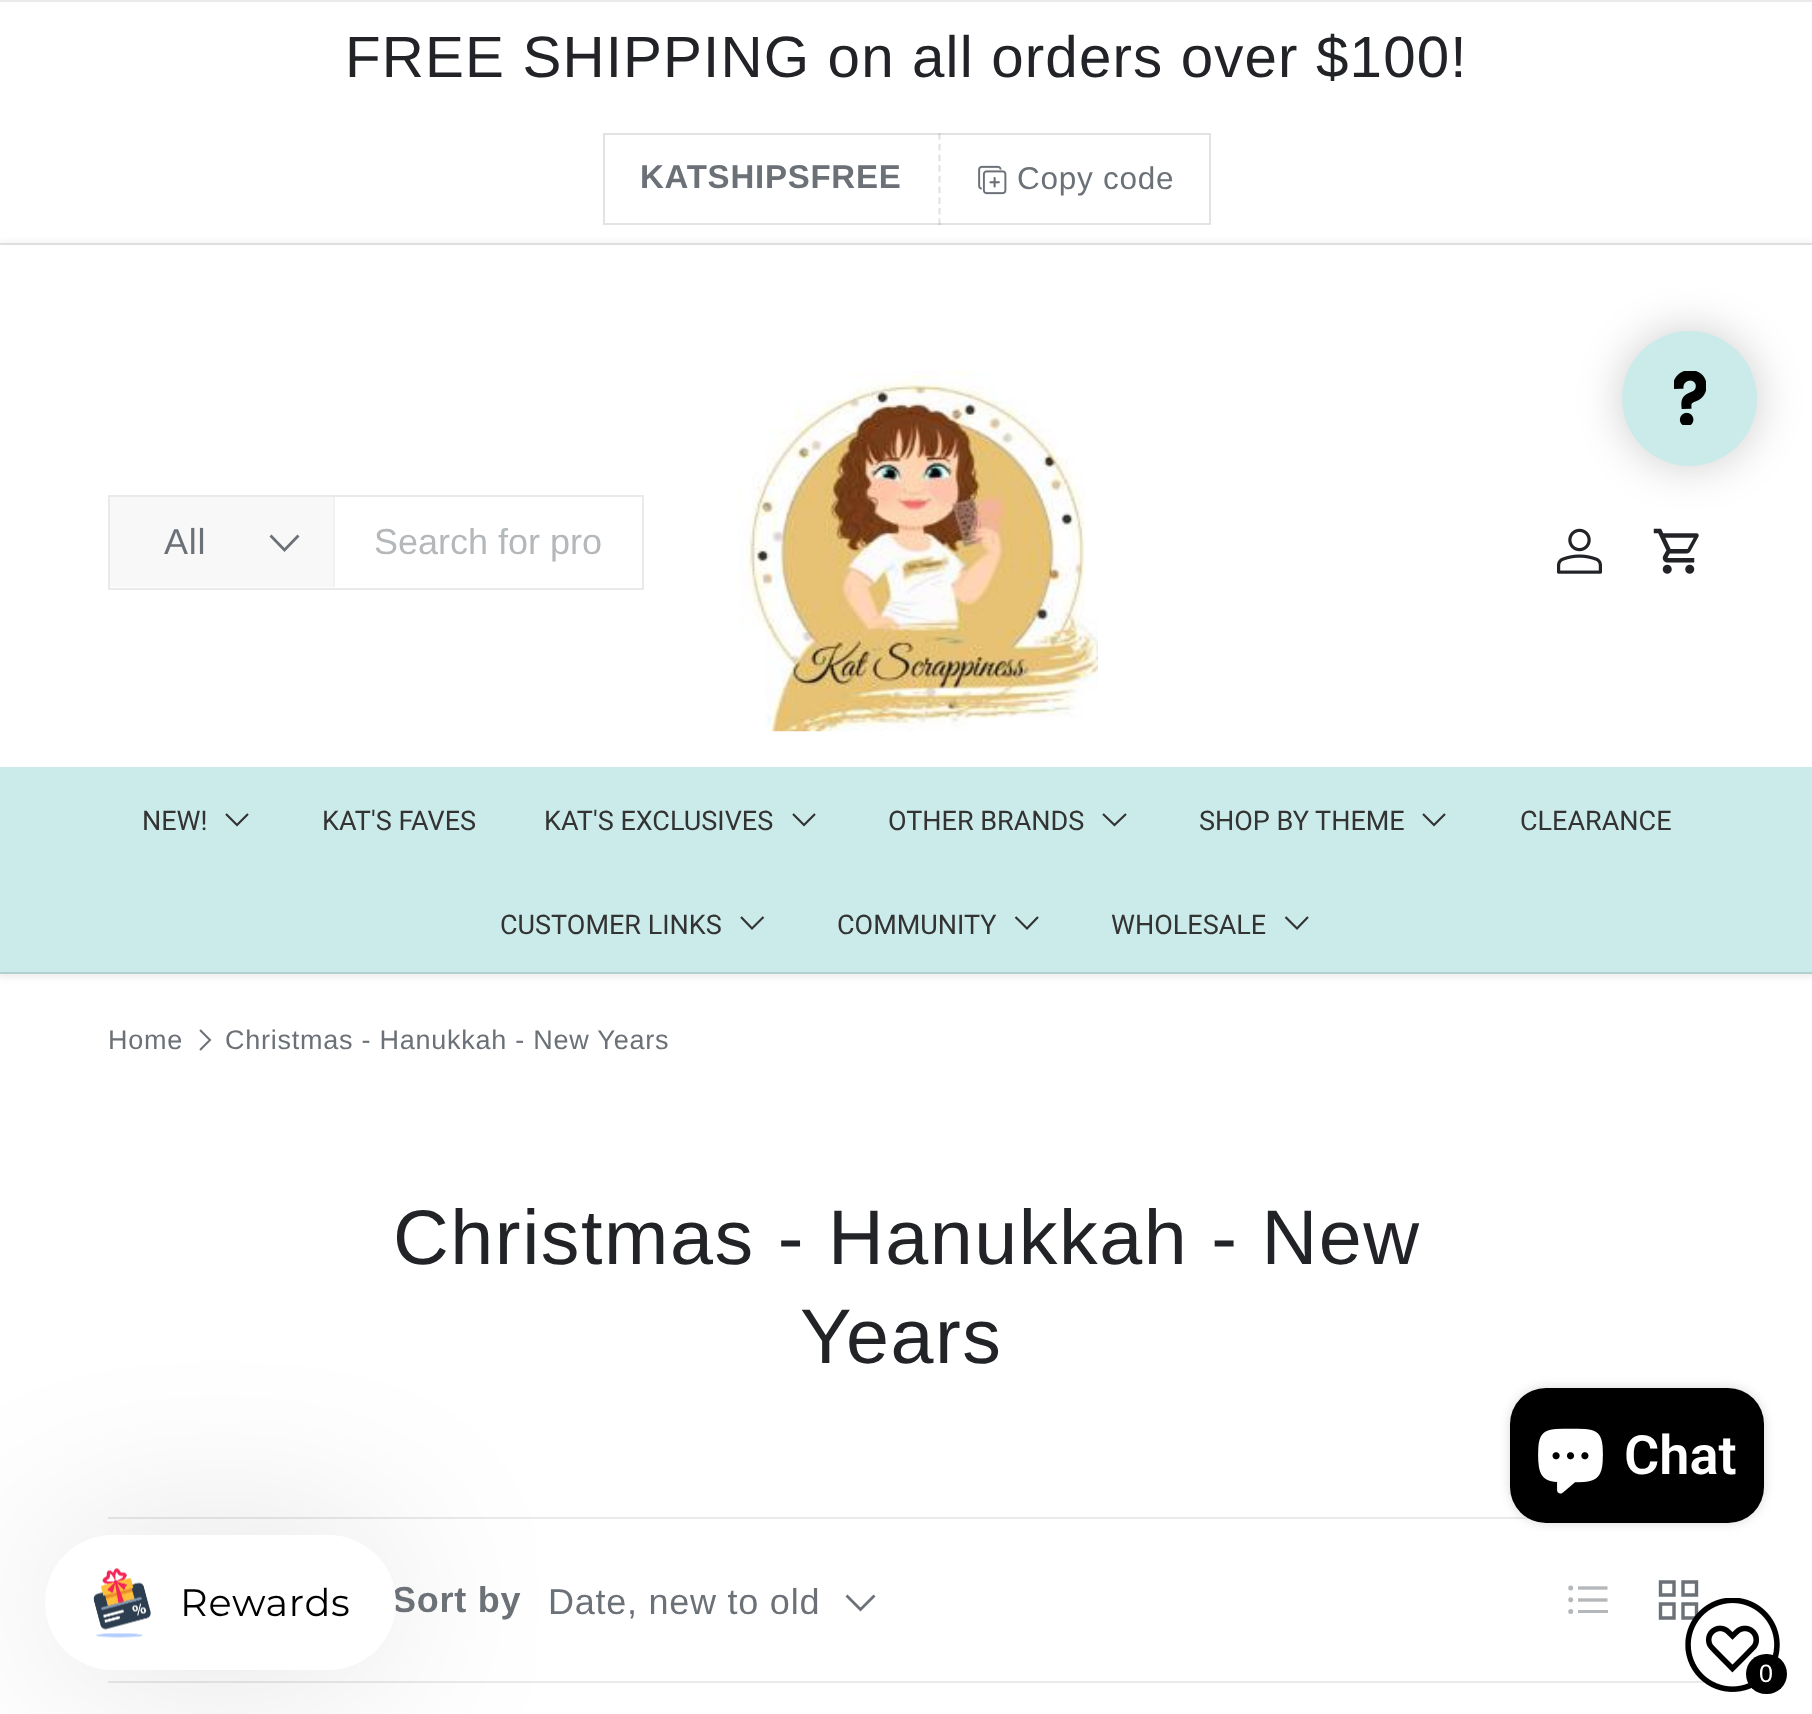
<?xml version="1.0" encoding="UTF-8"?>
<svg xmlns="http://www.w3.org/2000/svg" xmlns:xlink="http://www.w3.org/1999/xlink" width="1812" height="1714">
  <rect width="100%" height="100%" fill="#ffffff" />
  <rect width="1812" height="2" fill="#e9eaeb" />
  <rect y="243" width="1812" height="2" fill="#e9eaeb" />
  <rect x="604" y="134" width="606" height="90" fill="none" stroke="#e1e3e4" stroke-width="2" />
  <path d="M 939.5 133 v 92" fill="none" stroke="#6b7177" stroke-opacity="0.2" stroke-width="2.2" stroke-dasharray="6.75 3.94" />
  <image x="978" y="165" width="29" height="30" xlink:href="image1.png" />
  <rect x="-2" y="243" width="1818" height="734" fill="#000000" fill-opacity="0.08" filter="blur(3.5px)" />
  <rect y="245" width="1812" height="522" fill="#ffffff" />
  <image x="1557" y="528" width="45" height="46" xlink:href="image4.png" />
  <image x="1653" y="528" width="46" height="46" xlink:href="image5.png" />
  <rect x="1622" y="331" width="135" height="135" rx="67.5" fill="#000000" fill-opacity="0.2" filter="blur(22.5px)" />
  <circle cx="1689.5" cy="398.5" r="67.5" fill="#caebe9" />
  <image x="1674" y="371" width="32" height="54" xlink:href="image2.png" />
  <rect x="109" y="496" width="534" height="93" fill="none" stroke="#e9eaeb" stroke-width="2" />
  <rect x="110" y="497" width="223" height="90" fill="#f8f8f8" />
  <rect x="333" y="497" width="2" height="90" fill="#f1f1f2" />
  <path d="M 298.5 535.5 l -14 14.5 l -14 -14.5" fill="none" stroke="#6b7177" stroke-width="2.8" />
  <image x="738" y="371" width="360" height="361" xlink:href="image3.png" />
  <rect y="767" width="1812" height="205" fill="#caebe9" />
  <path d="M 248 814 l -11 11 l -11 -11" fill="none" stroke="#333333" stroke-width="2.2" />
  <path d="M 815 814 l -11 11 l -11 -11" fill="none" stroke="#333333" stroke-width="2.2" />
  <path d="M 1126 814 l -11.5 11 l -11.5 -11" fill="none" stroke="#333333" stroke-width="2.2" />
  <path d="M 1445 814 l -11 11 l -11 -11" fill="none" stroke="#333333" stroke-width="2.2" />
  <path d="M 763.5 917 l -11.5 11.5 l -11 -11.5" fill="none" stroke="#333333" stroke-width="2.2" />
  <path d="M 1038 917 l -11 11.5 l -11.5 -11.5" fill="none" stroke="#333333" stroke-width="2.2" />
  <path d="M 1308 917 l -11 11.5 l -11.5 -11.5" fill="none" stroke="#333333" stroke-width="2.2" />
  <rect y="972" width="1812" height="2" fill="#b3cfce" />
  <path d="M 200 1030 l 10 10 l -10 10" fill="none" stroke="#6b7177" stroke-width="2" />
  <rect x="108" y="1517" width="1422" height="2" fill="#e9eaeb" />
  <rect x="108" y="1681" width="1598" height="2" fill="#e9eaeb" />
  <path d="M 874.5 1595.5 l -14 14 l -14 -14" fill="none" stroke="#6b7177" stroke-width="2.8" />
  <circle cx="1570.7" cy="1588.1" r="2.5" fill="#b5b8bb" />
  <path d="M 1578 1588 h 29.5" fill="none" stroke="#b5b8bb" stroke-width="3.4" />
  <circle cx="1570.7" cy="1599.8" r="2.5" fill="#b5b8bb" />
  <path d="M 1578 1600 h 29.5" fill="none" stroke="#b5b8bb" stroke-width="3.4" />
  <circle cx="1570.7" cy="1611.4" r="2.5" fill="#b5b8bb" />
  <rect x="1578" y="1610" width="30" height="3" fill="#b5b8bb" />
  <path d="M 1660.5 1582 h 13.5 v 13 h -13.5 z m 22.5 0 h 13.5 v 13 h -13.5 z m -22.5 22 h 13.5 v 14 h -13.5 z m 22.5 0 h 13.5 v 14 h -13.5 z" fill="none" stroke="#6b7177" stroke-width="3.4" />
  <rect x="1510" y="1388" width="254" height="135" rx="36" fill="#000000" fill-opacity="0.15" filter="blur(5.5px)" />
  <rect x="1510" y="1388" width="254" height="135" rx="36" fill="#000000" />
  <image x="1538" y="1428" width="65" height="66" xlink:href="image6.png" />
  <rect x="45" y="1535" width="351" height="135" rx="67.5" fill="#000000" fill-opacity="0.12" filter="blur(90px)" />
  <image x="1685" y="1598" width="95" height="94" xlink:href="image8.png" />
  <rect x="1746" y="1654" width="41" height="40" rx="20" fill="#000000" />
  <text x="345" y="77" style="font-family: Liberation Sans; font-size: 58.3px; letter-spacing: 1.15px; fill: #212326">FREE SHIPPING on all orders over $100!</text>
  <text x="640" y="188" style="font-family: Liberation Sans; font-size: 33px; font-weight: bold; letter-spacing: 0.75px; fill: #6b7177">KATSHIPSFREE</text>
  <text x="1017" y="189" style="font-family: Liberation Sans; font-size: 31.5px; letter-spacing: 0.75px; fill: #6b7177">Copy code</text>
  <text x="164" y="554" style="font-family: Liberation Sans; font-size: 36px; letter-spacing: 0.75px; fill: #6b7177">All</text>
  <text x="374" y="554" style="font-family: Liberation Sans; font-size: 36px; fill: #b5b8bb">Search for pro</text>
  <text x="142" y="830" style="font-family: Roboto; font-size: 27px; fill: #333333">NEW!</text>
  <text x="322" y="830" style="font-family: Roboto; font-size: 27px; fill: #333333">KAT'S FAVES</text>
  <text x="544" y="830" style="font-family: Roboto; font-size: 27px; fill: #333333">KAT'S EXCLUSIVES</text>
  <text x="888" y="830" style="font-family: Roboto; font-size: 27px; fill: #333333">OTHER BRANDS</text>
  <text x="1199" y="830" style="font-family: Roboto; font-size: 27px; fill: #333333">SHOP BY THEME</text>
  <text x="1520" y="830" style="font-family: Roboto; font-size: 27px; fill: #333333">CLEARANCE</text>
  <text x="500" y="934" style="font-family: Roboto; font-size: 27px; fill: #333333">CUSTOMER LINKS</text>
  <text x="837" y="934" style="font-family: Roboto; font-size: 27px; fill: #333333">COMMUNITY</text>
  <text x="1111" y="934" style="font-family: Roboto; font-size: 27px; fill: #333333">WHOLESALE</text>
  <text x="108" y="1049" style="font-family: Liberation Sans; font-size: 27px; letter-spacing: 0.75px; fill: #6b7177">Home</text>
  <text x="225" y="1049" style="font-family: Liberation Sans; font-size: 27px; letter-spacing: 0.75px; fill: #6b7177">Christmas - Hanukkah - New Years</text>
  <text x="393" y="1264" style="font-family: Liberation Sans; font-size: 77.25px; letter-spacing: 1.55px; fill: #212326">Christmas - Hanukkah - New</text>
  <text x="800" y="1363" style="font-family: Liberation Sans; font-size: 77.25px; letter-spacing: 1.55px; fill: #212326">Years</text>
  <text x="392" y="1612" style="font-family: Liberation Sans; font-size: 36px; font-weight: bold; letter-spacing: 0.75px; fill: #6b7177">Sort by</text>
  <text x="548" y="1614" style="font-family: Liberation Sans; font-size: 36px; letter-spacing: 0.75px; fill: #6b7177">Date, new to old</text>
  <text x="1624" y="1474" style="font-family: Roboto; font-size: 54px; font-weight: 600; fill: #ffffff">Chat</text>
  <rect x="45" y="1535" width="351" height="135" rx="67.5" fill="#ffffff" />
  <image x="93" y="1568" width="58" height="70" xlink:href="image7.png" />
  <text x="180" y="1616" style="font-family: Montserrat; font-size: 38.25px; letter-spacing: 0.75px; fill: #000000">Rewards</text>
  <text x="1759" y="1682" style="font-family: Liberation Sans; font-size: 25px; letter-spacing: 0.75px; fill: #ffffff">0</text>
</svg>
